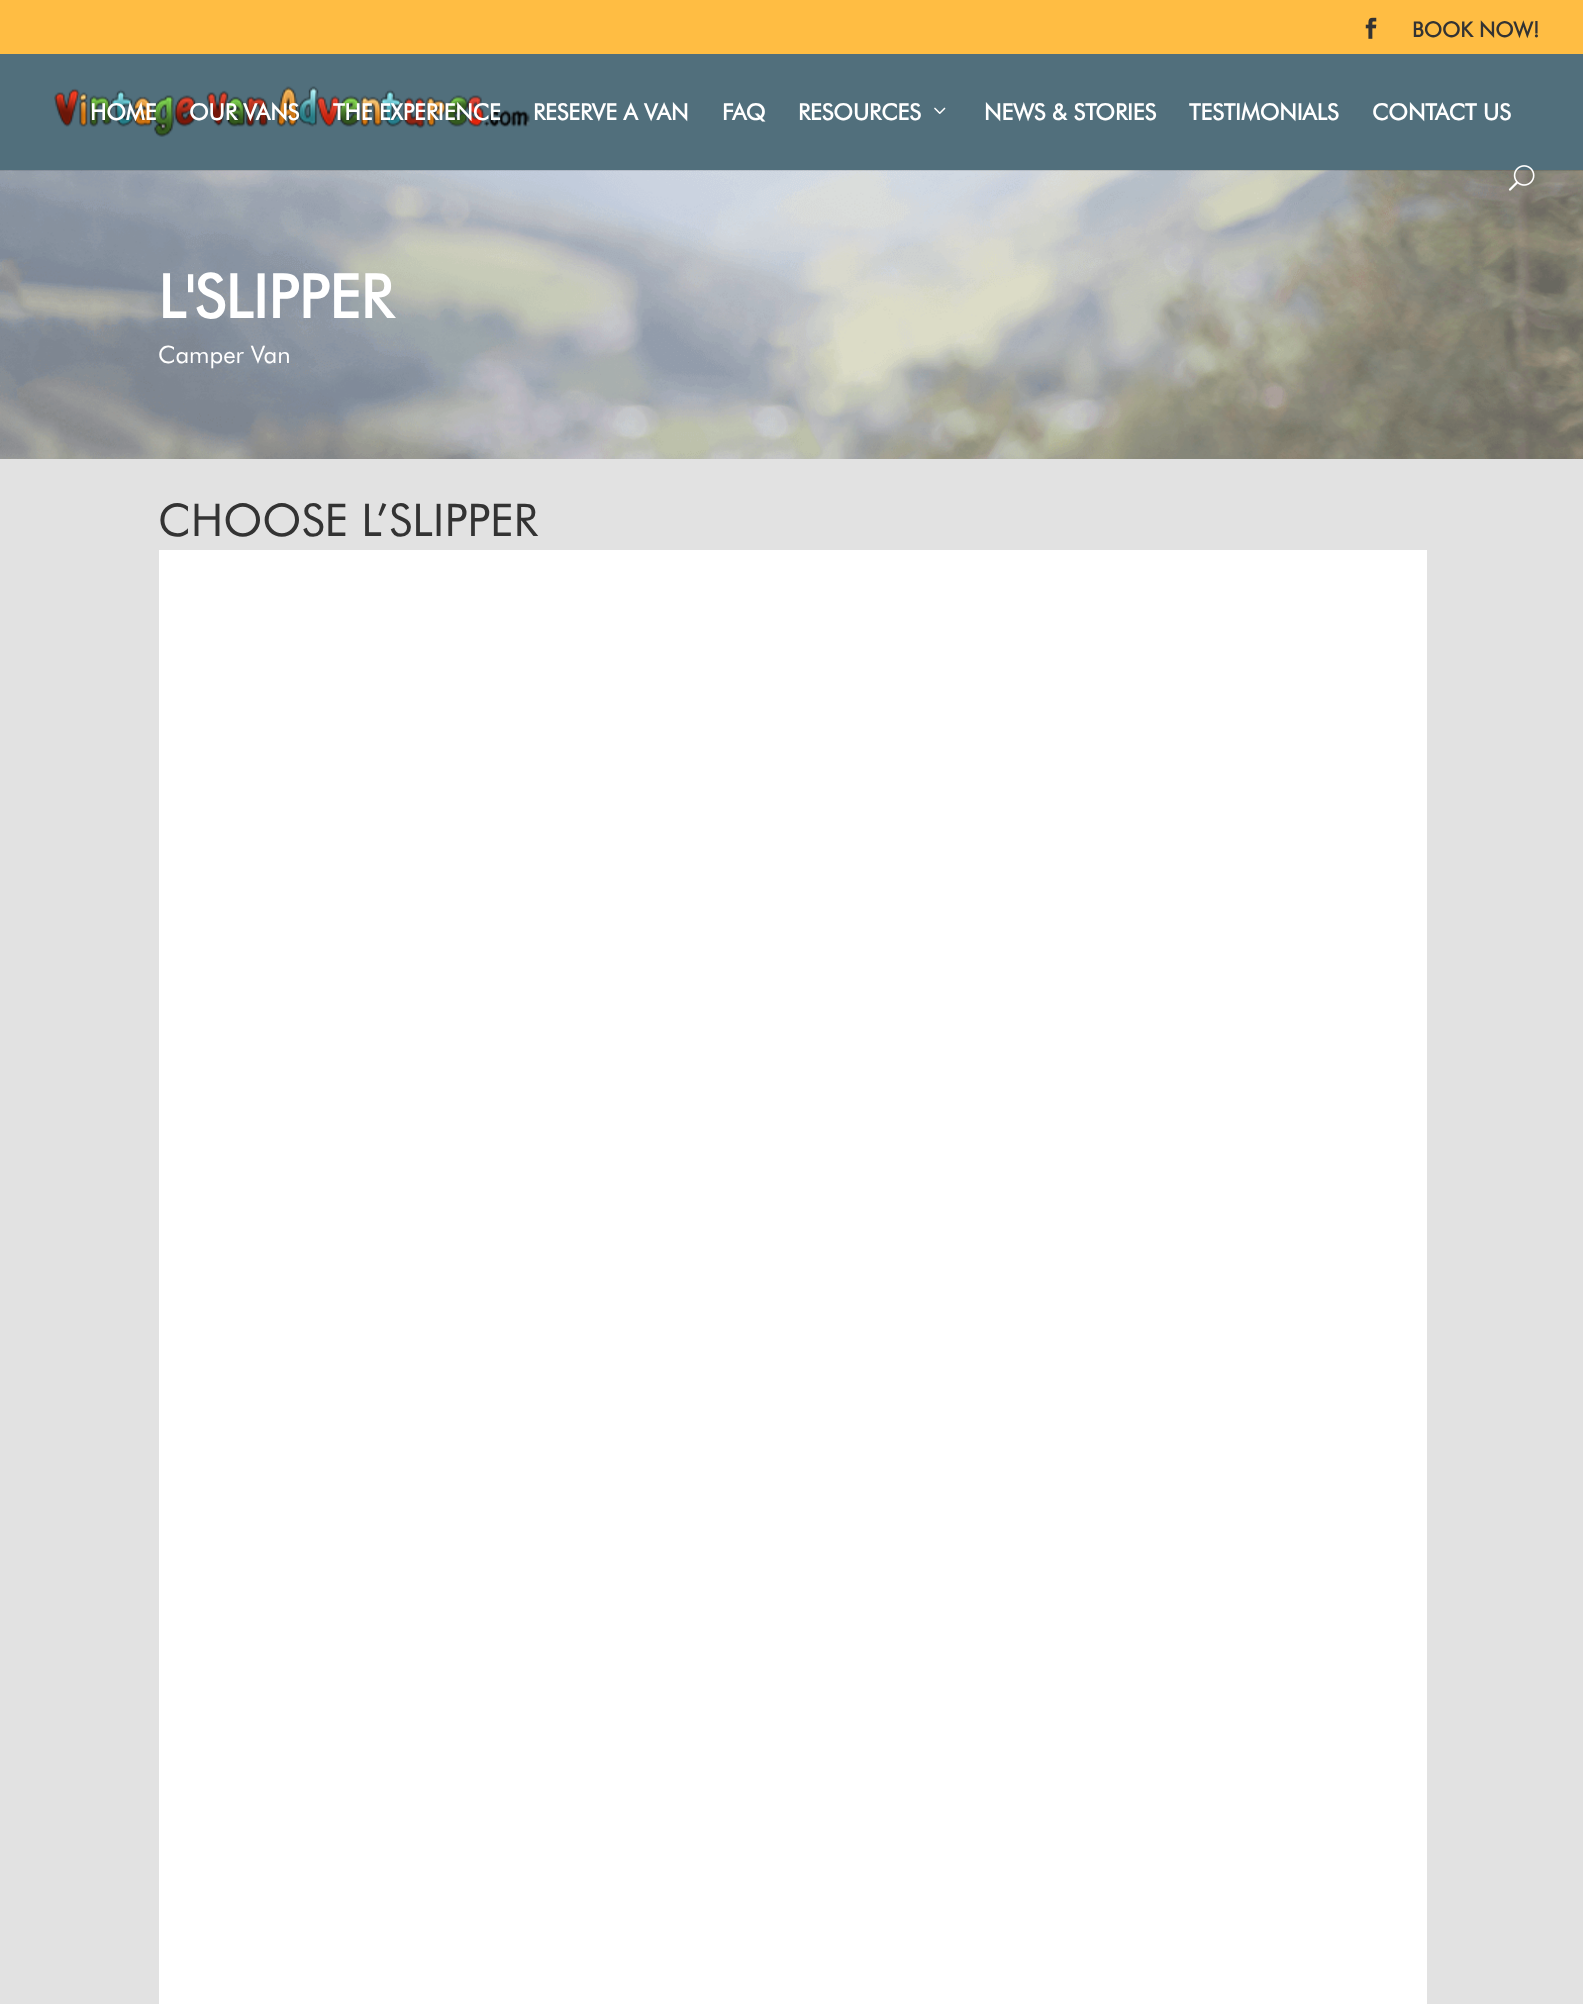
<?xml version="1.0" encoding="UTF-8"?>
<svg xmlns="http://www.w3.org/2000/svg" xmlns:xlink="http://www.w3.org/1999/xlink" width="1583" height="2004">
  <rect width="100%" height="100%" fill="#ffffff" />
  <rect width="1583" height="54" fill="#ffbd43" />
  <image x="1365" y="17" width="12" height="22" xlink:href="image1.png" />
  <image x="0" y="170" width="1583" height="289" xlink:href="image5.png" />
  <rect y="170" width="1583" height="1" fill="#000000" fill-opacity="0.1" />
  <rect y="54" width="1583" height="116" fill="#516f7c" />
  <image x="54" y="86" width="476" height="51" xlink:href="image2.png" />
  <image x="934" y="107" width="12" height="7" xlink:href="image3.png" />
  <image x="1508" y="165" width="27" height="26" xlink:href="image4.png" />
  <rect y="459" width="1583" height="1545" fill="#e2e2e2" />
  <rect x="159" y="550" width="1268" height="1454" fill="#ffffff" />
  <text x="1412" y="37" style="font-family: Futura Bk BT; font-size: 21px; font-weight: bold; fill: #333333">BOOK NOW!</text>
  <text x="90" y="120" style="font-family: Futura Bk BT; font-size: 22.5px; font-weight: bold; fill: #ffffff">HOME</text>
  <text x="189" y="120" style="font-family: Futura Bk BT; font-size: 22.5px; font-weight: bold; fill: #ffffff">OUR VANS</text>
  <text x="333" y="120" style="font-family: Futura Bk BT; font-size: 22.5px; font-weight: bold; fill: #ffffff">THE EXPERIENCE</text>
  <text x="533" y="120" style="font-family: Futura Bk BT; font-size: 22.5px; font-weight: bold; fill: #ffffff">RESERVE A VAN</text>
  <text x="722" y="120" style="font-family: Futura Bk BT; font-size: 22.5px; font-weight: bold; fill: #ffffff">FAQ</text>
  <text x="798" y="120" style="font-family: Futura Bk BT; font-size: 22.5px; font-weight: bold; fill: #ffffff">RESOURCES</text>
  <text x="984" y="120" style="font-family: Futura Bk BT; font-size: 22.5px; font-weight: bold; fill: #ffffff">NEWS &amp; STORIES</text>
  <text x="1189" y="120" style="font-family: Futura Bk BT; font-size: 22.5px; font-weight: bold; fill: #ffffff">TESTIMONIALS</text>
  <text x="1372" y="120" style="font-family: Futura Bk BT; font-size: 22.5px; font-weight: bold; fill: #ffffff">CONTACT US</text>
  <text x="158" y="318" style="font-family: Futura Bk BT; font-size: 60px; font-weight: bold; fill: #ffffff">L'SLIPPER</text>
  <text x="158" y="363" style="font-family: Futura Bk BT; font-size: 24px; fill: #ffffff">Camper Van</text>
  <text x="158" y="536" style="font-family: Futura Bk BT; font-size: 45px; fill: #333333">CHOOSE L’SLIPPER</text>
</svg>
